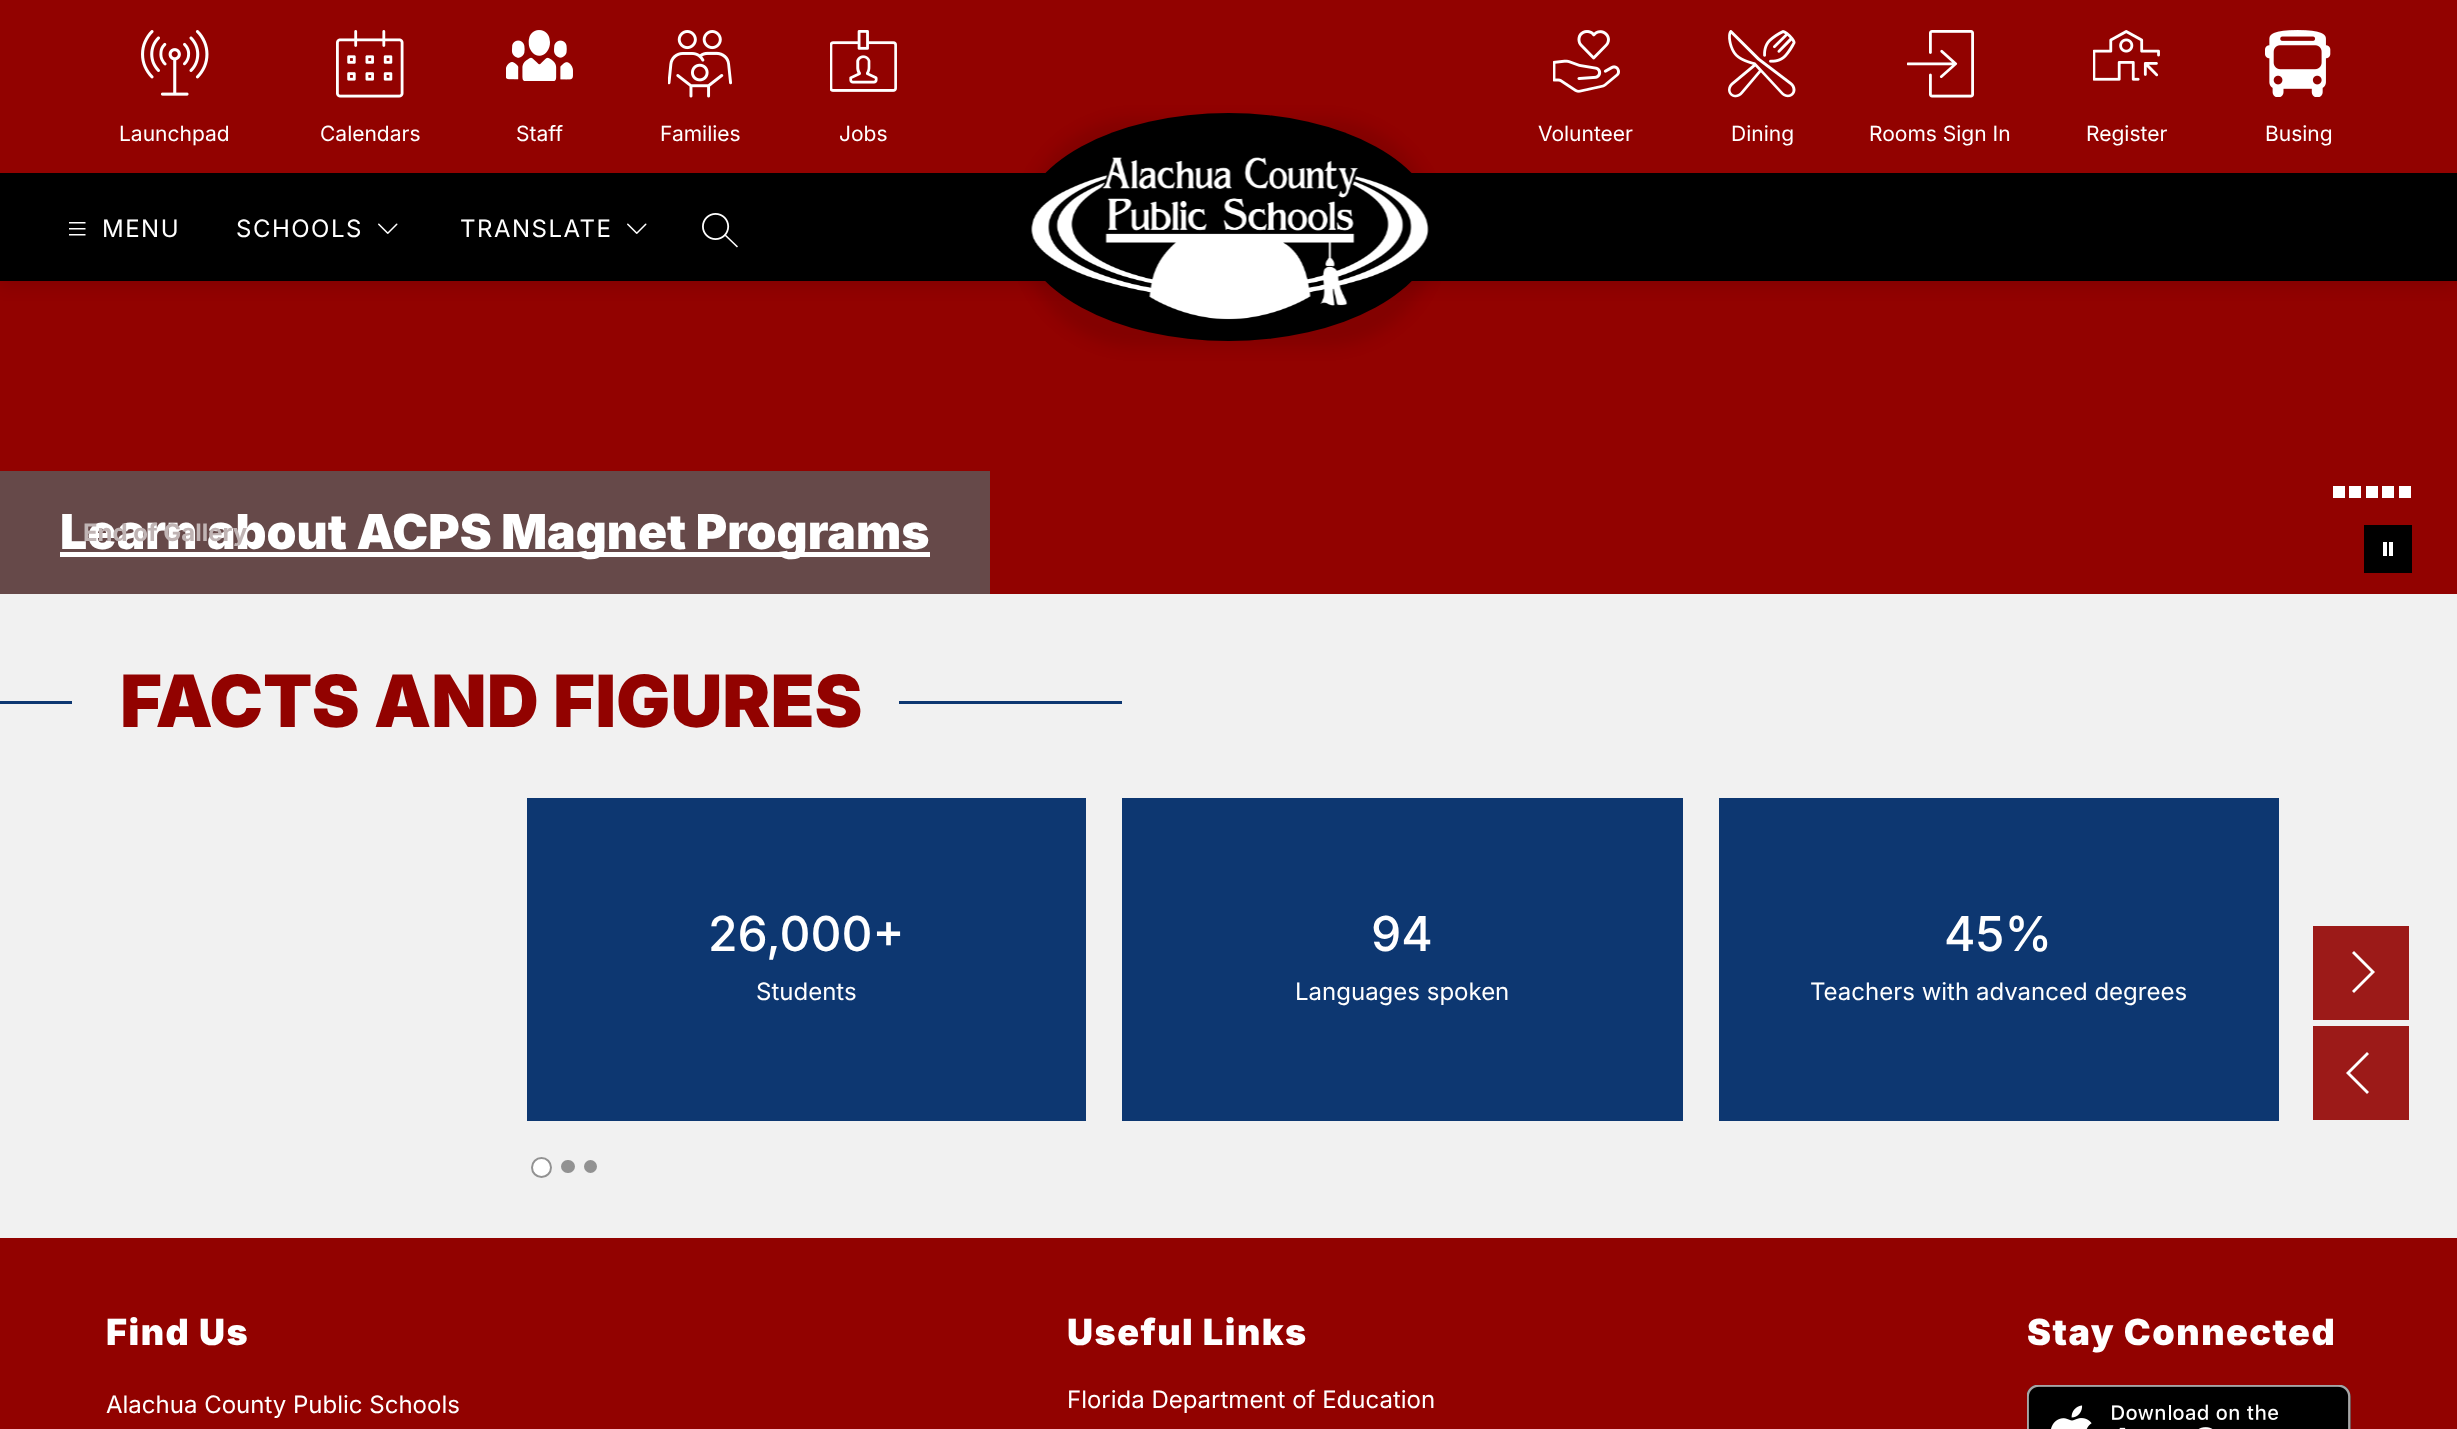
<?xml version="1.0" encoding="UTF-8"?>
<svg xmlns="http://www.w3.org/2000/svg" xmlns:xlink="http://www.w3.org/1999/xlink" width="2457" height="1429">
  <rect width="100%" height="100%" fill="#920200" />
  <rect y="6" width="2457" height="281" fill="#000000" fill-opacity="0.1" filter="blur(7.5px)" />
  <rect width="2457" height="173" fill="#920200" />
  <image x="141" y="30" width="68" height="66" xlink:href="image1.png" />
  <image x="336" y="30" width="68" height="68" xlink:href="image2.png" />
  <image x="506" y="30" width="67" height="51" xlink:href="image3.png" />
  <image x="668" y="30" width="64" height="68" xlink:href="image4.png" />
  <image x="830" y="30" width="67" height="62" xlink:href="image5.png" />
  <image x="1553" y="30" width="67" height="63" xlink:href="image6.png" />
  <image x="1728" y="30" width="68" height="68" xlink:href="image7.png" />
  <image x="1907" y="30" width="67" height="68" xlink:href="image8.png" />
  <image x="2093" y="30" width="67" height="51" xlink:href="image9.png" />
  <image x="2265" y="30" width="66" height="67" xlink:href="image10.png" />
  <rect y="173" width="2457" height="108" fill="#000000" />
  <image x="69" y="222" width="17" height="14" xlink:href="image11.png" />
  <image x="378" y="223" width="20" height="11" xlink:href="image12.png" />
  <image x="627" y="223" width="20" height="11" xlink:href="image12.png" />
  <image x="702" y="213" width="36" height="35" xlink:href="image13.png" />
  <rect x="1022" y="119" width="415" height="228" rx="114" fill="#000000" fill-opacity="0.1" filter="blur(7.5px)" />
  <ellipse cx="1228.5" cy="227" rx="208" ry="114" fill="#000000" />
  <image x="1031" y="157" width="398" height="163" xlink:href="image14.png" />
  <rect y="471" width="990" height="123" fill="#664949" />
  <rect x="60" y="552" width="870" height="5" fill="#ffffff" />
  <rect x="2333" y="486" width="12" height="12" fill="#ffffff" />
  <rect x="2349" y="486" width="12" height="12" fill="#ffffff" />
  <rect x="2366" y="486" width="12" height="12" fill="#ffffff" />
  <rect x="2382" y="486" width="12" height="12" fill="#ffffff" />
  <rect x="2399" y="486" width="12" height="12" fill="#ffffff" />
  <rect x="2364" y="525" width="48" height="48" fill="#000000" />
  <path d="M 2387 542 h -4 v 14 h 4 z m 6 0 h -4 v 14 h 4 z" fill="#ffffff" fill-rule="evenodd" />
  <rect y="594" width="2457" height="644" fill="#f1f1f1" />
  <rect y="701" width="72" height="3" fill="#0d3771" />
  <rect x="899" y="701" width="223" height="3" fill="#0d3771" />
  <rect x="527" y="798" width="559" height="323" fill="#0d3771" />
  <rect x="1122" y="798" width="561" height="323" fill="#0d3771" />
  <rect x="1719" y="798" width="560" height="323" fill="#0d3771" />
  <circle cx="541.5" cy="1167.5" r="9.5" fill="#ffffff" stroke="#929292" stroke-width="2" />
  <rect x="562" y="1161" width="12" height="11" rx="5.5" fill="#929292" stroke="#929292" stroke-width="2" />
  <circle cx="590.5" cy="1166.5" r="5.5" fill="#929292" stroke="#929292" stroke-width="2" />
  <rect x="2313" y="926" width="96" height="94" fill="#9c1a18" />
  <path d="M 2371 972 l -19 19 l 2 2 l 21 -21 l -21 -21 l -2 2 z" fill="#ffffff" fill-rule="evenodd" />
  <rect x="2313" y="1026" width="96" height="94" fill="#9c1a18" />
  <path d="M 2350 1073 l 19 19 l -2 2 l -21 -21 l 21 -21 l 2 2 z" fill="#ffffff" fill-rule="evenodd" />
  <image x="2027" y="1385" width="324" height="44" xlink:href="image15.png" />
  <text x="119" y="141" style="font-family: Inter; font-size: 21px; fill: #ffffff">Launchpad</text>
  <text x="320" y="141" style="font-family: Inter; font-size: 21px; fill: #ffffff">Calendars</text>
  <text x="516" y="141" style="font-family: Inter; font-size: 21px; fill: #ffffff">Staff</text>
  <text x="660" y="141" style="font-family: Inter; font-size: 21px; fill: #ffffff">Families</text>
  <text x="839" y="141" style="font-family: Inter; font-size: 21px; fill: #ffffff">Jobs</text>
  <text x="1538" y="141" style="font-family: Inter; font-size: 21px; fill: #ffffff">Volunteer</text>
  <text x="1731" y="141" style="font-family: Inter; font-size: 21px; fill: #ffffff">Dining</text>
  <text x="1869" y="141" style="font-family: Inter; font-size: 21px; fill: #ffffff">Rooms Sign In</text>
  <text x="2086" y="141" style="font-family: Inter; font-size: 21px; fill: #ffffff">Register</text>
  <text x="2265" y="141" style="font-family: Inter; font-size: 21px; fill: #ffffff">Busing</text>
  <text x="102" y="237" style="font-family: Inter; font-size: 24px; letter-spacing: 1.5px; fill: #ffffff">MENU</text>
  <text x="236" y="237" style="font-family: Inter; font-size: 24px; letter-spacing: 1.5px; fill: #ffffff">SCHOOLS</text>
  <text x="460" y="237" style="font-family: Inter; font-size: 24px; letter-spacing: 1.5px; fill: #ffffff">TRANSLATE</text>
  <text x="60" y="549" style="font-family: Inter; font-size: 48px; font-weight: 900; fill: #ffffff">Learn about ACPS Magnet Programs</text>
  <text x="83" y="541" style="font-family: Inter; font-size: 24px; font-weight: bold; fill: #c0b4b4">End of Gallery</text>
  <text x="120" y="727" style="font-family: Inter; font-size: 72px; font-weight: 900; fill: #920200">FACTS AND FIGURES</text>
  <text x="708" y="951" style="font-family: Inter; font-size: 48px; font-weight: 500; fill: #ffffff">26,000+</text>
  <text x="756" y="1000" style="font-family: Inter; font-size: 24px; fill: #ffffff">Students</text>
  <text x="1371" y="951" style="font-family: Inter; font-size: 48px; font-weight: 500; fill: #ffffff">94</text>
  <text x="1295" y="1000" style="font-family: Inter; font-size: 24px; fill: #ffffff">Languages spoken</text>
  <text x="1944" y="951" style="font-family: Inter; font-size: 48px; font-weight: 500; fill: #ffffff">45%</text>
  <text x="1810" y="1000" style="font-family: Inter; font-size: 24px; fill: #ffffff">Teachers with advanced degrees</text>
  <text x="106" y="1345" style="font-family: Inter; font-size: 36px; font-weight: 900; letter-spacing: 1.5px; fill: #ffffff">Find Us</text>
  <text x="106" y="1413" style="font-family: Inter; font-size: 24px; fill: #ffffff">Alachua County Public Schools</text>
  <text x="1067" y="1345" style="font-family: Inter; font-size: 36px; font-weight: 900; letter-spacing: 1.5px; fill: #ffffff">Useful Links</text>
  <text x="1067" y="1408" style="font-family: Inter; font-size: 24px; fill: #ffffff">Florida Department of Education</text>
  <text x="2027" y="1345" style="font-family: Inter; font-size: 36px; font-weight: 900; letter-spacing: 1.5px; fill: #ffffff">Stay Connected</text>
</svg>
